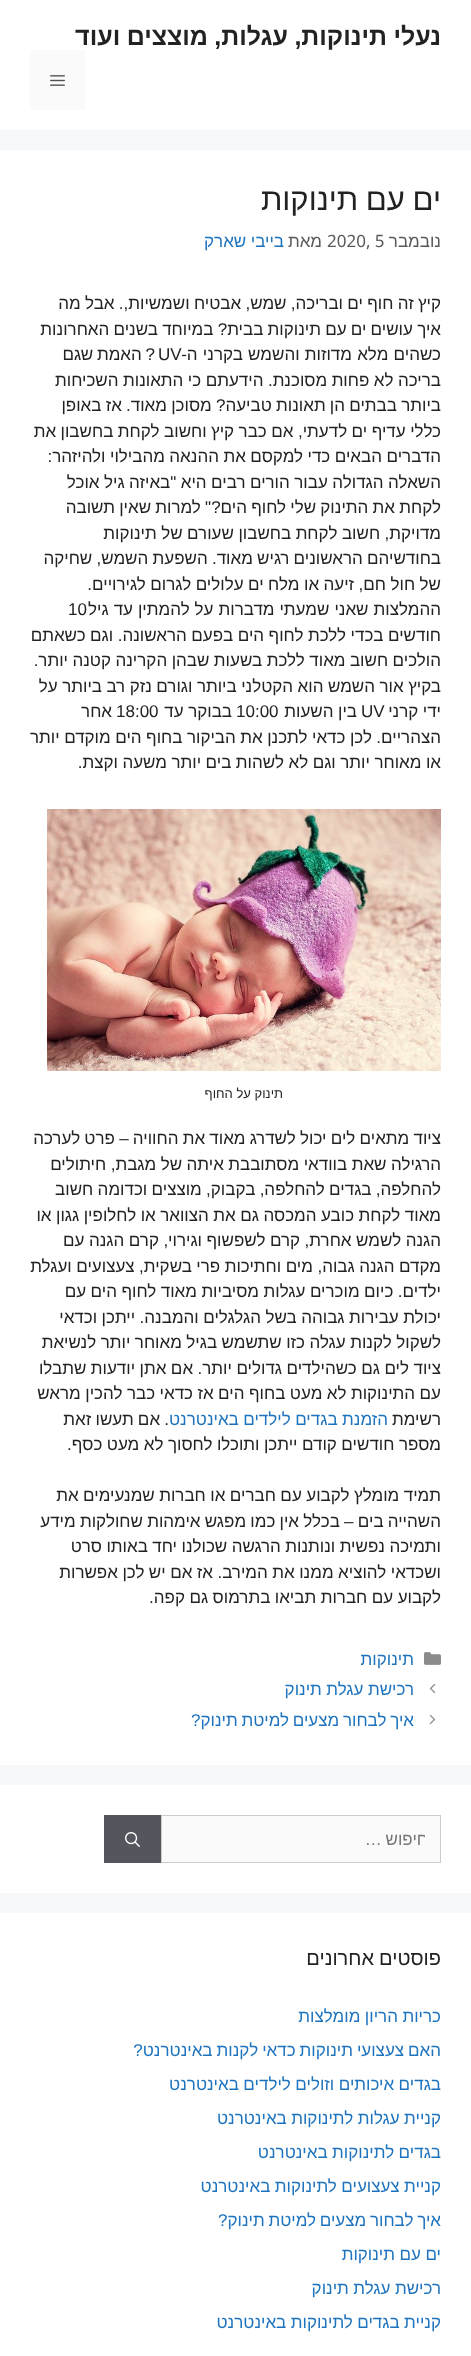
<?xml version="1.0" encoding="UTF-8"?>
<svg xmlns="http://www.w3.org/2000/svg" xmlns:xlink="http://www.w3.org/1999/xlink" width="471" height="2356">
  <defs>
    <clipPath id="clip1"><rect x="193" y="1827" width="232" height="23" /></clipPath>
  </defs>
  <rect width="100%" height="100%" fill="#f7f8f9" />
  <rect width="471" height="130" fill="#ffffff" />
  <rect x="30" y="50" width="55" height="60" fill="#fafafa" />
  <image x="50" y="75" width="15" height="11" xlink:href="image1.png" />
  <rect y="150" width="471" height="1615" fill="#ffffff" />
  <image x="47" y="809" width="394" height="262" xlink:href="image2.png" />
  <image x="424" y="1652" width="17" height="13" xlink:href="image3.png" />
  <image x="429" y="1683" width="7" height="11" xlink:href="image4.png" />
  <image x="429" y="1714" width="7" height="11" xlink:href="image5.png" />
  <rect y="1785" width="471" height="108" fill="#ffffff" />
  <rect x="161.5" y="1815.5" width="279" height="47" fill="#fafafa" stroke="#cccccc" />
  <rect x="104" y="1815" width="57" height="48" fill="#55555e" />
  <image x="125" y="1832" width="15" height="15" xlink:href="image6.png" />
  <rect y="1913" width="471" height="443" fill="#ffffff" />
  <text x="441" y="45" word-spacing="-0.5" style="font-family: Liberation Sans; font-size: 25px; font-weight: bold; direction: rtl; fill: #222222">נעלי תינוקות, עגלות, מוצצים ועוד</text>
  <text x="441" y="210" word-spacing="-1" style="font-family: Liberation Sans; font-size: 31px; direction: rtl; fill: #222222">ים עם תינוקות</text>
  <text x="441" y="247" style="font-family: Liberation Sans; font-size: 17px; direction: rtl; fill: #595959">נובמבר</text>
  <text x="327" y="247" style="font-family: Noto Sans; font-size: 17px; fill: #595959">2020, 5</text>
  <text x="322" y="247" style="font-family: Liberation Sans; font-size: 17px; direction: rtl; fill: #595959">מאת</text>
  <text x="284" y="247" word-spacing="-0.25" style="font-family: Liberation Sans; font-size: 17px; direction: rtl; fill: #1e73be">בייבי שארק</text>
  <text x="441" y="309" word-spacing="-0.4" style="font-family: Liberation Sans; font-size: 17px; direction: rtl; fill: #222222">קיץ זה חוף ים ובריכה, שמש, אבטיח ושמשיות,. אבל מה</text>
  <text x="441" y="335" word-spacing="-0.5" style="font-family: Liberation Sans; font-size: 17px; direction: rtl; fill: #222222">איך עושים ים עם תינוקות בבית? במיוחד בשנים האחרונות</text>
  <text x="158" y="360" style="font-family: Liberation Sans; font-size: 17px; fill: #222222">UV</text>
  <text x="441" y="360" word-spacing="0.5" style="font-family: Liberation Sans; font-size: 17px; direction: rtl; fill: #222222">כשהים מלא מדוזות והשמש בקרני ה-</text>
  <text x="155" y="360" word-spacing="-1" style="font-family: Liberation Sans; font-size: 17px; direction: rtl; fill: #222222">? האמת שגם</text>
  <text x="441" y="386" word-spacing="-0.25" style="font-family: Liberation Sans; font-size: 17px; direction: rtl; fill: #222222">בריכה לא פחות מסוכנת. הידעתם כי התאונות השכיחות</text>
  <text x="441" y="411" word-spacing="-0.5" style="font-family: Liberation Sans; font-size: 17px; direction: rtl; fill: #222222">ביותר בבתים הן תאונות טביעה? מסוכן מאוד. אז באופן</text>
  <text x="441" y="437" word-spacing="-0.25" style="font-family: Liberation Sans; font-size: 17px; direction: rtl; fill: #222222">כללי עדיף ים לדעתי, אם כבר קיץ וחשוב לקחת בחשבון את</text>
  <text x="441" y="462" word-spacing="-0.25" style="font-family: Liberation Sans; font-size: 17px; direction: rtl; fill: #222222">הדברים הבאים כדי למקסם את ההנאה מהבילוי ולהיזהר:</text>
  <text x="441" y="488" word-spacing="-0.25" style="font-family: Liberation Sans; font-size: 17px; direction: rtl; fill: #222222">השאלה הגדולה עבור הורים רבים היא "באיזה גיל אוכל</text>
  <text x="441" y="513" word-spacing="-0.5" style="font-family: Liberation Sans; font-size: 17px; direction: rtl; fill: #222222">לקחת את התינוק שלי לחוף הים?" למרות שאין תשובה</text>
  <text x="441" y="539" word-spacing="-0.25" style="font-family: Liberation Sans; font-size: 17px; direction: rtl; fill: #222222">מדויקת, חשוב לקחת בחשבון שעורם של תינוקות</text>
  <text x="441" y="564" word-spacing="-0.5" style="font-family: Liberation Sans; font-size: 17px; direction: rtl; fill: #222222">בחודשיהם הראשונים רגיש מאוד. השפעת השמש, שחיקה</text>
  <text x="441" y="590" word-spacing="-0.25" style="font-family: Liberation Sans; font-size: 17px; direction: rtl; fill: #222222">של חול חם, זיעה או מלח ים עלולים לגרום לגירויים.</text>
  <text x="441" y="615" word-spacing="0.25" style="font-family: Liberation Sans; font-size: 17px; direction: rtl; fill: #222222">ההמלצות שאני שמעתי מדברות על להמתין עד גיל</text>
  <text x="68" y="615" style="font-family: Liberation Sans; font-size: 17px; fill: #222222">10</text>
  <text x="441" y="641" word-spacing="-0.25" style="font-family: Liberation Sans; font-size: 17px; direction: rtl; fill: #222222">חודשים בכדי ללכת לחוף הים בפעם הראשונה. וגם כשאתם</text>
  <text x="441" y="666" word-spacing="-0.25" style="font-family: Liberation Sans; font-size: 17px; direction: rtl; fill: #222222">הולכים חשוב מאוד ללכת בשעות שבהן הקרינה קטנה יותר.</text>
  <text x="441" y="692" word-spacing="-0.25" style="font-family: Liberation Sans; font-size: 17px; direction: rtl; fill: #222222">בקיץ אור השמש הוא הקטלני ביותר וגורם נזק רב ביותר על</text>
  <text x="441" y="717" word-spacing="-0.25" style="font-family: Liberation Sans; font-size: 17px; direction: rtl; fill: #222222">ידי קרני</text>
  <text x="361" y="717" style="font-family: Liberation Sans; font-size: 17px; fill: #222222">UV</text>
  <text x="357" y="717" word-spacing="-0.25" style="font-family: Liberation Sans; font-size: 17px; direction: rtl; fill: #222222">בין השעות</text>
  <text x="236" y="717" style="font-family: Liberation Sans; font-size: 17px; fill: #222222">10:00</text>
  <text x="232" y="717" word-spacing="-0.25" style="font-family: Liberation Sans; font-size: 17px; direction: rtl; fill: #222222">בבוקר עד</text>
  <text x="116" y="717" style="font-family: Liberation Sans; font-size: 17px; fill: #222222">18:00</text>
  <text x="112" y="717" style="font-family: Liberation Sans; font-size: 17px; direction: rtl; fill: #222222">אחר</text>
  <text x="441" y="743" word-spacing="-0.25" style="font-family: Liberation Sans; font-size: 17px; direction: rtl; fill: #222222">הצהריים. לכן כדאי לתכנן את הביקור בחוף הים מוקדם יותר</text>
  <text x="441" y="768" word-spacing="-0.25" style="font-family: Liberation Sans; font-size: 17px; direction: rtl; fill: #222222">או מאוחר יותר וגם לא לשהות בים יותר משעה וקצת.</text>
  <text x="283" y="1098" style="font-family: Liberation Sans; font-size: 13px; direction: rtl; fill: #222222">תינוק על החוף</text>
  <text x="441" y="1144" word-spacing="-0.5" style="font-family: Liberation Sans; font-size: 17px; direction: rtl; fill: #222222">ציוד מתאים לים יכול לשדרג מאוד את החוויה – פרט לערכה</text>
  <text x="441" y="1170" word-spacing="-0.25" style="font-family: Liberation Sans; font-size: 17px; direction: rtl; fill: #222222">הרגילה שאת בוודאי מסתובבת איתה של מגבת, חיתולים</text>
  <text x="441" y="1195" word-spacing="-0.4" style="font-family: Liberation Sans; font-size: 17px; direction: rtl; fill: #222222">להחלפה, בגדים להחלפה, בקבוק, מוצצים וכדומה חשוב</text>
  <text x="441" y="1221" word-spacing="-0.25" style="font-family: Liberation Sans; font-size: 17px; direction: rtl; fill: #222222">מאוד לקחת כובע המכסה גם את הצוואר או לחלופין גגון או</text>
  <text x="441" y="1246" word-spacing="-0.25" style="font-family: Liberation Sans; font-size: 17px; direction: rtl; fill: #222222">הגנה לשמש אחרת, קרם לשפשוף וגירוי, קרם הגנה עם</text>
  <text x="441" y="1272" word-spacing="-0.25" style="font-family: Liberation Sans; font-size: 17px; direction: rtl; fill: #222222">מקדם הגנה גבוה, מים וחתיכות פרי בשקית, צעצועים ועגלת</text>
  <text x="441" y="1297" word-spacing="-0.25" style="font-family: Liberation Sans; font-size: 17px; direction: rtl; fill: #222222">ילדים. כיום מוכרים עגלות מסיביות מאוד לחוף הים עם</text>
  <text x="441" y="1323" word-spacing="-0.25" style="font-family: Liberation Sans; font-size: 17px; direction: rtl; fill: #222222">יכולת עבירות גבוהה בשל הגלגלים והמבנה. ייתכן וכדאי</text>
  <text x="441" y="1348" word-spacing="-0.25" style="font-family: Liberation Sans; font-size: 17px; direction: rtl; fill: #222222">לשקול לקנות עגלה כזו שתשמש בגיל מאוחר יותר לנשיאת</text>
  <text x="441" y="1374" word-spacing="-0.25" style="font-family: Liberation Sans; font-size: 17px; direction: rtl; fill: #222222">ציוד לים גם כשהילדים גדולים יותר. אם אתן יודעות שתבלו</text>
  <text x="441" y="1399" word-spacing="-0.25" style="font-family: Liberation Sans; font-size: 17px; direction: rtl; fill: #222222">עם התינוקות לא מעט בחוף הים אז כדאי כבר להכין מראש</text>
  <text x="441" y="1425" style="font-family: Liberation Sans; font-size: 17px; direction: rtl; fill: #222222">רשימת</text>
  <text x="388" y="1425" word-spacing="-0.25" style="font-family: Liberation Sans; font-size: 17px; direction: rtl; fill: #1e73be">הזמנת בגדים לילדים באינטרנט</text>
  <text x="169" y="1425" word-spacing="-0.5" style="font-family: Liberation Sans; font-size: 17px; direction: rtl; fill: #222222">. אם תעשו זאת</text>
  <text x="441" y="1450" word-spacing="-0.25" style="font-family: Liberation Sans; font-size: 17px; direction: rtl; fill: #222222">מספר חודשים קודם ייתכן ותוכלו לחסוך לא מעט כסף.</text>
  <text x="441" y="1501" word-spacing="-0.25" style="font-family: Liberation Sans; font-size: 17px; direction: rtl; fill: #222222">תמיד מומלץ לקבוע עם חברים או חברות שמנעימים את</text>
  <text x="441" y="1527" word-spacing="-0.5" style="font-family: Liberation Sans; font-size: 17px; direction: rtl; fill: #222222">השהייה בים – בכלל אין כמו מפגש אימהות שחולקות מידע</text>
  <text x="441" y="1552" word-spacing="-0.25" style="font-family: Liberation Sans; font-size: 17px; direction: rtl; fill: #222222">ותמיכה נפשית ונותנות הרגשה שכולנו יחד באותו סרט</text>
  <text x="441" y="1578" word-spacing="-0.25" style="font-family: Liberation Sans; font-size: 17px; direction: rtl; fill: #222222">ושכדאי להוציא ממנו את המירב. אז אם יש לכן אפשרות</text>
  <text x="441" y="1603" word-spacing="-0.25" style="font-family: Liberation Sans; font-size: 17px; direction: rtl; fill: #222222">לקבוע עם חברות תביאו בתרמוס גם קפה.</text>
  <text x="414" y="1665" style="font-family: Liberation Sans; font-size: 17px; direction: rtl; fill: #1e73be">תינוקות</text>
  <text x="414" y="1695" word-spacing="-0.25" style="font-family: Liberation Sans; font-size: 17px; direction: rtl; fill: #1e73be">רכישת עגלת תינוק</text>
  <text x="414" y="1726" word-spacing="-1" style="font-family: Liberation Sans; font-size: 17px; direction: rtl; fill: #1e73be">איך לבחור מצעים למיטת תינוק?</text>
  <g clip-path="url(#clip1)">
    <text x="428" y="1845" word-spacing="-1" style="font-family: Liberation Sans; font-size: 17px; direction: rtl; fill: #757575">חיפוש …</text>
  </g>
  <text x="441" y="1965" word-spacing="-0.5" style="font-family: Liberation Sans; font-size: 20px; direction: rtl; fill: #222222">פוסטים אחרונים</text>
  <text x="441" y="2022" word-spacing="-0.25" style="font-family: Liberation Sans; font-size: 17px; direction: rtl; fill: #1e73be">כריות הריון מומלצות</text>
  <text x="441" y="2056" word-spacing="-0.75" style="font-family: Liberation Sans; font-size: 17px; direction: rtl; fill: #1e73be">האם צעצועי תינוקות כדאי לקנות באינטרנט?</text>
  <text x="441" y="2090" word-spacing="-0.25" style="font-family: Liberation Sans; font-size: 17px; direction: rtl; fill: #1e73be">בגדים איכותים וזולים לילדים באינטרנט</text>
  <text x="441" y="2124" word-spacing="-0.25" style="font-family: Liberation Sans; font-size: 17px; direction: rtl; fill: #1e73be">קניית עגלות לתינוקות באינטרנט</text>
  <text x="441" y="2158" word-spacing="-0.25" style="font-family: Liberation Sans; font-size: 17px; direction: rtl; fill: #1e73be">בגדים לתינוקות באינטרנט</text>
  <text x="441" y="2192" word-spacing="-0.25" style="font-family: Liberation Sans; font-size: 17px; direction: rtl; fill: #1e73be">קניית צעצועים לתינוקות באינטרנט</text>
  <text x="441" y="2226" word-spacing="-1" style="font-family: Liberation Sans; font-size: 17px; direction: rtl; fill: #1e73be">איך לבחור מצעים למיטת תינוק?</text>
  <text x="441" y="2260" word-spacing="-0.25" style="font-family: Liberation Sans; font-size: 17px; direction: rtl; fill: #1e73be">ים עם תינוקות</text>
  <text x="441" y="2294" word-spacing="-0.25" style="font-family: Liberation Sans; font-size: 17px; direction: rtl; fill: #1e73be">רכישת עגלת תינוק</text>
  <text x="441" y="2328" word-spacing="-0.25" style="font-family: Liberation Sans; font-size: 17px; direction: rtl; fill: #1e73be">קניית בגדים לתינוקות באינטרנט</text>
</svg>
